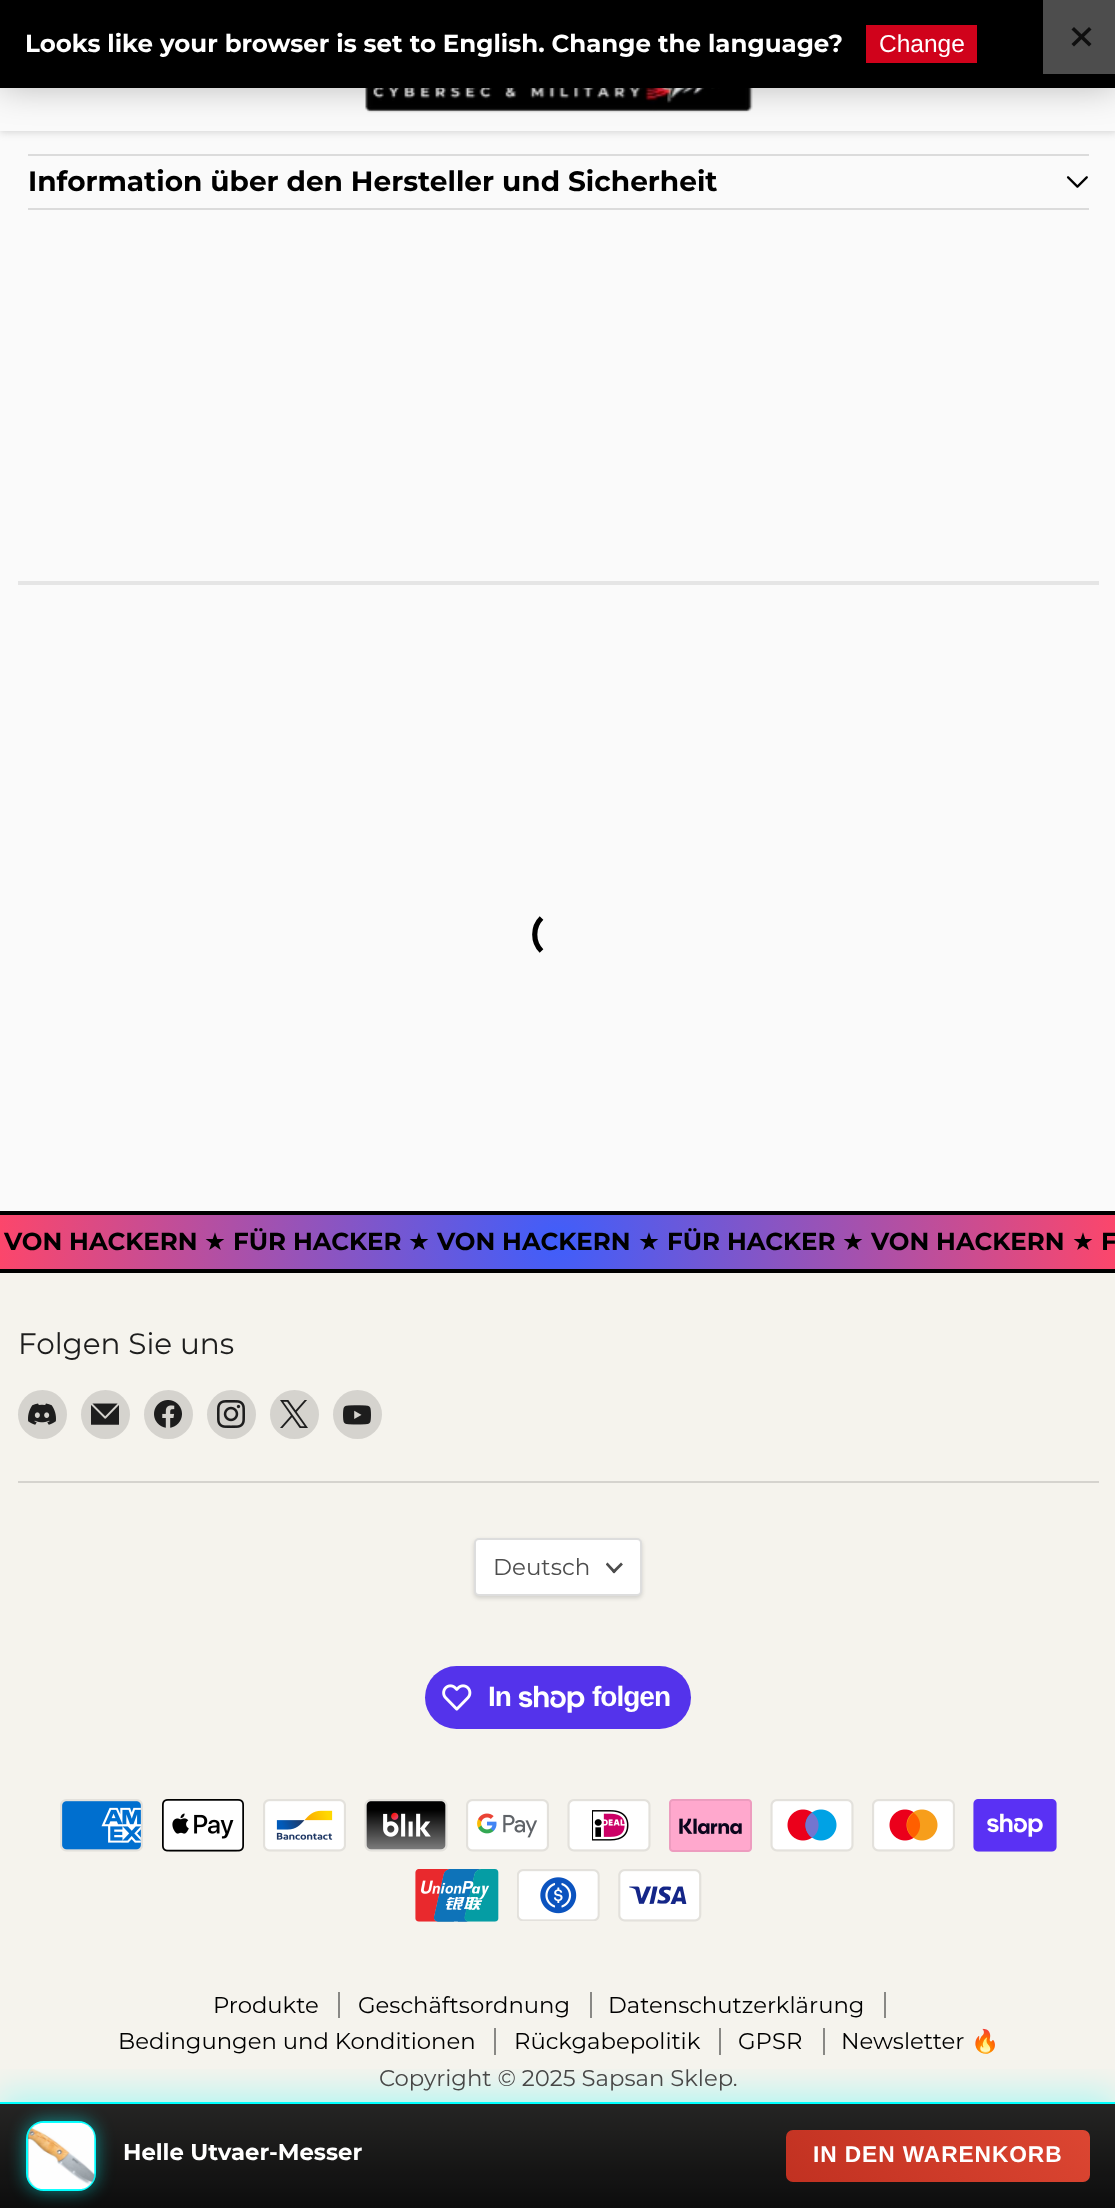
<?xml version="1.0" encoding="UTF-8"?>
<svg xmlns="http://www.w3.org/2000/svg" xmlns:xlink="http://www.w3.org/1999/xlink" width="1115" height="2208">
  <defs>
    <radialGradient id="g1" gradientUnits="userSpaceOnUse" cx="558" cy="1242" r="559"><stop offset="0" stop-color="#3f5efb" /><stop offset="1" stop-color="#fc466b" /></radialGradient>
    <clipPath id="clip1"><rect x="606" y="1561" width="17" height="12" /></clipPath>
    <clipPath id="clip2"><rect x="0" y="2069" width="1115" height="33" /></clipPath>
    <linearGradient id="g2" gradientUnits="userSpaceOnUse" x1="558" y1="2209" x2="558" y2="2104"><stop offset="0" stop-color="#000000" stop-opacity="0.95" /><stop offset="1" stop-color="#000000" stop-opacity="0.85" /></linearGradient>
    <linearGradient id="g3" gradientUnits="userSpaceOnUse" x1="849" y1="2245" x2="1027" y2="2067"><stop offset="0" stop-color="#c13121" /><stop offset="1" stop-color="#dc4632" /></linearGradient>
  </defs>
  <rect width="100%" height="100%" fill="#fafafa" />
  <rect y="2" width="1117" height="131" fill="#7d7d7d" fill-opacity="0.25" filter="blur(3.5px)" />
  <rect y="88" width="1115" height="43" fill="#fafafa" />
  <image x="365" y="88" width="388" height="25" xlink:href="image1.png" />
  <rect width="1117" height="88" fill="#000000" fill-opacity="0.25" filter="blur(17.5px)" />
  <rect width="1115" height="88" fill="#000000" />
  <rect x="866" y="25" width="111" height="38" fill="#d0021b" />
  <rect x="1043" width="72" height="74" fill="#4d4d4d" />
  <path d="M 1089 27 l 2.5 2.5 l -17.5 17 l -2.5 -2.5 z" fill="#0f0f0f" />
  <path d="M 1071.5 29.5 l 2.5 -2.5 l 17.5 17 l -2.5 2.5 z" fill="#0f0f0f" />
  <rect x="28" y="154" width="1061" height="2" fill="#dbdbdb" />
  <rect x="28" y="208" width="1061" height="2" fill="#dbdbdb" />
  <image x="1066" y="176" width="22" height="12" xlink:href="image2.png" />
  <rect x="18" y="581" width="1081" height="4" fill="#7d7d7d" fill-opacity="0.16" />
  <path d="M 541.5 951 c -9 -9 -9 -24 0 -33" fill="none" stroke="#000000" stroke-width="5.2" />
  <rect y="1215" width="1115" height="54" fill="url(#g1)" />
  <rect y="1211" width="1115" height="4" fill="#000000" />
  <rect y="1269" width="1115" height="4" fill="#000000" />
  <rect y="1273" width="1115" height="904" fill="#f5f3ed" />
  <rect x="18" y="1481" width="1081" height="2" fill="#d5d3ce" />
  <circle cx="42.5" cy="1414.5" r="24.5" fill="#d5d3ce" />
  <image x="28" y="1403" width="28" height="22" xlink:href="image3.png" />
  <circle cx="105.5" cy="1414.5" r="24.5" fill="#d5d3ce" />
  <image x="91" y="1403" width="28" height="22" xlink:href="image4.png" />
  <circle cx="168.5" cy="1414.5" r="24.5" fill="#d5d3ce" />
  <image x="154" y="1400" width="28" height="28" xlink:href="image5.png" />
  <circle cx="231.5" cy="1414.5" r="24.5" fill="#d5d3ce" />
  <image x="217" y="1400" width="28" height="28" xlink:href="image6.png" />
  <circle cx="294.5" cy="1414.5" r="24.5" fill="#d5d3ce" />
  <image x="280" y="1400" width="28" height="28" xlink:href="image7.png" />
  <circle cx="357.5" cy="1414.5" r="24.5" fill="#d5d3ce" />
  <image x="343" y="1405" width="28" height="20" xlink:href="image8.png" />
  <rect x="474" y="1540" width="168" height="58" rx="5" fill="#000000" fill-opacity="0.15" filter="blur(2px)" />
  <rect x="475" y="1539" width="166" height="56" rx="4" fill="#ffffff" stroke="#dddddd" stroke-width="2" />
  <path d="M 614 1571.5 l 7 -7" fill="none" stroke="#4d4d4d" stroke-width="2.7" stroke-linecap="square" />
  <g clip-path="url(#clip1)">
    <path d="M 614 1571.5 l -6.5 -7" fill="none" stroke="#4d4d4d" stroke-width="2.7" stroke-linecap="square" />
  </g>
  <rect x="425" y="1666" width="266" height="63" rx="31.5" fill="#5433eb" />
  <image x="442" y="1684" width="30" height="27" xlink:href="image9.png" />
  <image x="518" y="1685" width="67" height="28" xlink:href="image10.png" />
  <image x="60" y="1799" width="83" height="53" xlink:href="image11.png" />
  <image x="162" y="1799" width="82" height="53" xlink:href="image12.png" />
  <image x="263" y="1799" width="83" height="53" xlink:href="image13.png" />
  <image x="364" y="1799" width="84" height="53" xlink:href="image14.png" />
  <image x="466" y="1799" width="83" height="53" xlink:href="image15.png" />
  <image x="567" y="1799" width="84" height="53" xlink:href="image16.png" />
  <image x="669" y="1799" width="83" height="53" xlink:href="image17.png" />
  <image x="770" y="1799" width="84" height="53" xlink:href="image18.png" />
  <image x="872" y="1799" width="83" height="53" xlink:href="image19.png" />
  <image x="973" y="1799" width="84" height="53" xlink:href="image20.png" />
  <image x="415" y="1869" width="84" height="53" xlink:href="image21.png" />
  <image x="517" y="1869" width="83" height="52" xlink:href="image22.png" />
  <image x="618" y="1869" width="84" height="53" xlink:href="image23.png" />
  <rect x="338" y="1992" width="2" height="26" fill="#898885" />
  <rect x="590" y="1992" width="2" height="26" fill="#898885" />
  <rect x="884" y="1992" width="2" height="26" fill="#898885" />
  <rect x="494" y="2028" width="2" height="27" fill="#898885" />
  <rect x="719" y="2028" width="2" height="27" fill="#898885" />
  <rect x="823" y="2028" width="2" height="27" fill="#898885" />
  <g clip-path="url(#clip2)">
    <rect y="2095" width="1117" height="107" fill="#00ffff" fill-opacity="0.3" filter="blur(17.5px)" />
  </g>
  <rect y="2104" width="1115" height="104" fill="url(#g2)" />
  <rect y="2102" width="1115" height="2" fill="#00ffff" />
  <rect x="26" y="2121" width="70" height="70" rx="18" fill="#00ffff" fill-opacity="0.5" filter="blur(9px)" />
  <rect x="27" y="2122" width="68" height="68" rx="17" fill="none" stroke="#00ffff" stroke-width="2" />
  <image x="27" y="2122" width="68" height="68" xlink:href="image24.png" />
  <rect x="786" y="2130" width="304" height="52" rx="7" fill="url(#g3)" />
  <text x="25" y="52" style="font-family: Montserrat; font-size: 24.5px; font-weight: bold; fill: #ffffff">Looks like your browser is set to English. Change the language?</text>
  <text x="879" y="52" style="font-family: Liberation Sans; font-size: 24.5px; fill: #ffffff">Change</text>
  <text x="28" y="191" style="font-family: Montserrat; font-size: 28px; font-weight: bold; fill: #000000">Information über den Hersteller und Sicherheit</text>
  <text x="4" y="1250" style="font-family: Montserrat; font-size: 24.5px; font-weight: bold; fill: #000000">VON HACKERN</text>
  <text x="204" y="1250" style="font-family: DejaVu Sans; font-size: 24.5px; fill: #000000">★</text>
  <text x="233" y="1250" style="font-family: Montserrat; font-size: 24.5px; font-weight: bold; fill: #000000">FÜR HACKER</text>
  <text x="408" y="1250" style="font-family: DejaVu Sans; font-size: 24.5px; fill: #000000">★</text>
  <text x="437" y="1250" style="font-family: Montserrat; font-size: 24.5px; font-weight: bold; fill: #000000">VON HACKERN</text>
  <text x="638" y="1250" style="font-family: DejaVu Sans; font-size: 24.5px; fill: #000000">★</text>
  <text x="667" y="1250" style="font-family: Montserrat; font-size: 24.5px; font-weight: bold; fill: #000000">FÜR HACKER</text>
  <text x="842" y="1250" style="font-family: DejaVu Sans; font-size: 24.5px; fill: #000000">★</text>
  <text x="871" y="1250" style="font-family: Montserrat; font-size: 24.5px; font-weight: bold; fill: #000000">VON HACKERN</text>
  <text x="1072" y="1250" style="font-family: DejaVu Sans; font-size: 24.5px; fill: #000000">★</text>
  <text x="1101" y="1250" style="font-family: Montserrat; font-size: 24.5px; font-weight: bold; fill: #000000">F</text>
  <text x="18" y="1354" style="font-family: Montserrat; font-size: 29.5px; font-weight: 100; fill: #1d1d1d">Folgen Sie uns</text>
  <text x="493" y="1575" style="font-family: Montserrat; font-size: 23px; font-weight: 100; fill: #4d4d4d">Deutsch</text>
  <text x="488" y="1706" style="font-family: Liberation Sans; font-size: 28px; font-weight: bold; letter-spacing: -1px; fill: #ffffff">In</text>
  <text x="592" y="1706" style="font-family: Liberation Sans; font-size: 28px; font-weight: bold; letter-spacing: -1px; fill: #ffffff">folgen</text>
  <text x="213" y="2013" style="font-family: Montserrat; font-size: 22.75px; font-weight: 100; fill: #000000">Produkte</text>
  <text x="358" y="2013" style="font-family: Montserrat; font-size: 22.75px; font-weight: 100; fill: #000000">Geschäftsordnung</text>
  <text x="608" y="2013" style="font-family: Montserrat; font-size: 22.75px; font-weight: 100; fill: #000000">Datenschutzerklärung</text>
  <text x="118" y="2049" style="font-family: Montserrat; font-size: 22.75px; font-weight: 100; fill: #000000">Bedingungen und Konditionen</text>
  <text x="514" y="2049" style="font-family: Montserrat; font-size: 22.75px; font-weight: 100; fill: #000000">Rückgabepolitik</text>
  <text x="738" y="2049" style="font-family: Montserrat; font-size: 22.75px; font-weight: 100; fill: #000000">GPSR</text>
  <text x="841" y="2049" style="font-family: Montserrat; font-size: 22.75px; font-weight: 100; fill: #000000">Newsletter</text>
  <text x="971" y="2049" style="font-family: Noto Color Emoji; font-size: 22.75px; fill: #000000">🔥</text>
  <text x="379" y="2086" style="font-family: Montserrat; font-size: 22.75px; font-weight: 100; fill: #484847">Copyright © 2025 Sapsan Sklep.</text>
  <text x="123" y="2160" style="font-family: Montserrat; font-size: 22.75px; font-weight: bold; fill: #ffffff">Helle Utvaer-Messer</text>
  <text x="813" y="2162" style="font-family: Liberation Sans; font-size: 22.75px; font-weight: bold; letter-spacing: 0.9px; fill: #ffffff">IN DEN WARENKORB</text>
</svg>
